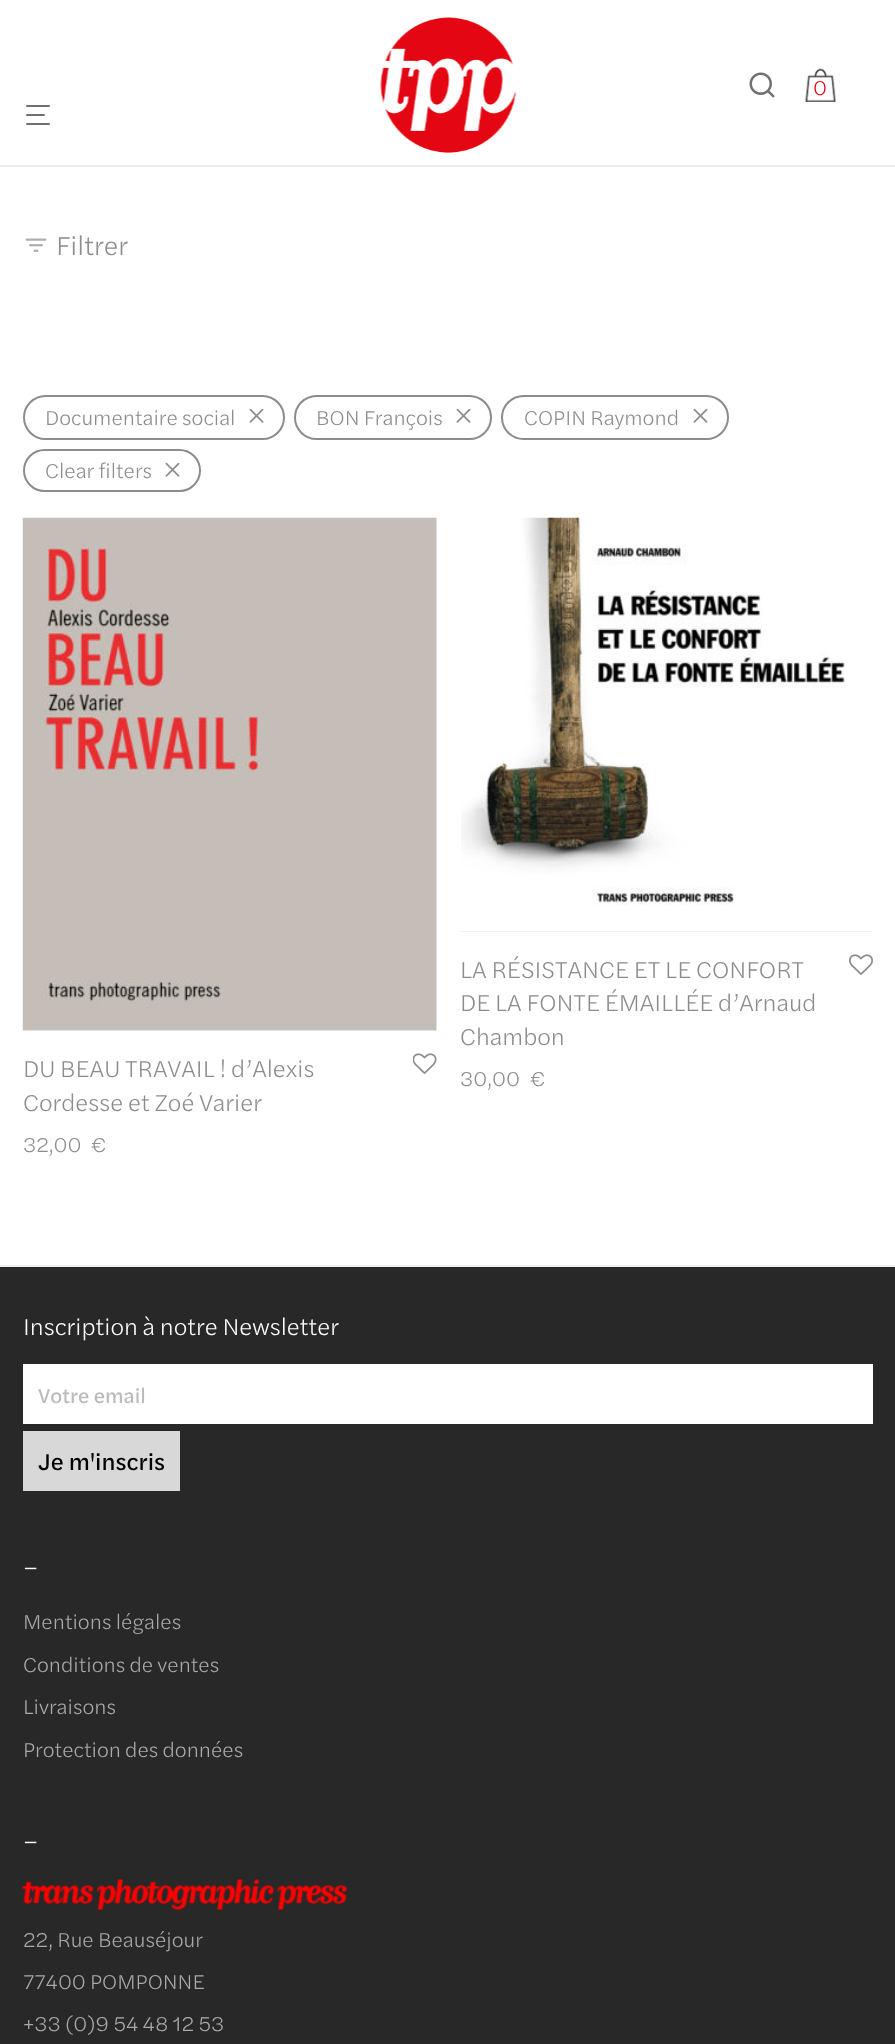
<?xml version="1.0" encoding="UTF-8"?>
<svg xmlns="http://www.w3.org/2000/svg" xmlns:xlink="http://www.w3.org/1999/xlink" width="895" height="2044">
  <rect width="100%" height="100%" fill="#ffffff" />
  <rect y="165" width="895" height="2" fill="#eeeeee" />
  <rect x="26" y="105" width="24" height="2" rx="1" fill="#707070" />
  <rect x="26" y="114" width="19" height="2" rx="1" fill="#707070" />
  <rect x="26" y="123" width="24" height="2" rx="1" fill="#707070" />
  <image x="380" y="17" width="137" height="136" xlink:href="image1.png" />
  <image x="749" y="72" width="26" height="26" xlink:href="image2.png" />
  <image x="805" y="68" width="32" height="34" xlink:href="image3.png" />
  <image x="25" y="238" width="22" height="14" xlink:href="image4.png" />
  <rect x="24" y="396" width="260" height="43" rx="21.5" fill="none" stroke="#8c8c8c" stroke-width="2" />
  <image x="249" y="408" width="15" height="15" xlink:href="image5.png" />
  <rect x="295" y="396" width="196" height="43" rx="21.5" fill="none" stroke="#8c8c8c" stroke-width="2" />
  <image x="456" y="408" width="15" height="15" xlink:href="image5.png" />
  <rect x="502" y="396" width="226" height="43" rx="21.5" fill="none" stroke="#8c8c8c" stroke-width="2" />
  <image x="693" y="408" width="15" height="15" xlink:href="image5.png" />
  <rect x="24" y="450" width="176" height="41" rx="20.5" fill="none" stroke="#8c8c8c" stroke-width="2" />
  <image x="165" y="462" width="15" height="15" xlink:href="image5.png" />
  <rect x="461" y="931" width="412" height="1" fill="#eeeeee" />
  <image x="461" y="517" width="412" height="415" xlink:href="image6.png" />
  <image x="849" y="954" width="24" height="21" xlink:href="image7.png" />
  <rect x="23" y="518" width="414" height="513" fill="#eeeeee" />
  <image x="22" y="517" width="415" height="514" xlink:href="image8.png" />
  <image x="413" y="1053" width="24" height="21" xlink:href="image9.png" />
  <rect y="1267" width="895" height="777" fill="#282828" />
  <rect y="1265" width="895" height="2" fill="#eeeeee" />
  <rect x="23" y="1364" width="850" height="60" fill="#ffffff" />
  <rect x="23" y="1431" width="157" height="60" fill="#d8d8d8" />
  <image x="22" y="1879" width="325" height="31" xlink:href="image10.png" />
  <text x="813" y="95" style="font-family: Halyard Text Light; font-size: 21px; font-weight: 300; fill: #e30613">0</text>
  <text x="56" y="255" style="font-family: Halyard Text Light; font-size: 27px; font-weight: 300; fill: #8c8c8c">Filtrer</text>
  <text x="45" y="425" style="font-family: Halyard Text Light; font-size: 21px; font-weight: 300; fill: #8c8c8c">Documentaire social</text>
  <text x="316" y="425" style="font-family: Halyard Text Light; font-size: 21px; font-weight: 300; fill: #8c8c8c">BON François</text>
  <text x="524" y="425" style="font-family: Halyard Text Light; font-size: 21px; font-weight: 300; fill: #8c8c8c">COPIN Raymond</text>
  <text x="45" y="478" style="font-family: Halyard Text Light; font-size: 21px; font-weight: 300; fill: #8c8c8c">Clear filters</text>
  <text x="460" y="978" style="font-family: Halyard Text Light; font-size: 24px; font-weight: 300; fill: #8c8c8c">LA RÉSISTANCE ET LE CONFORT</text>
  <text x="460" y="1011" style="font-family: Halyard Text Light; font-size: 24px; font-weight: 300; fill: #8c8c8c">DE LA FONTE ÉMAILLÉE d’Arnaud</text>
  <text x="460" y="1045" style="font-family: Halyard Text Light; font-size: 24px; font-weight: 300; fill: #8c8c8c">Chambon</text>
  <text x="460" y="1086" style="font-family: Halyard Text Light; font-size: 21px; font-weight: 300; fill: #8c8c8c">30,00</text>
  <text x="530" y="1086" style="font-family: Halyard Text Light; font-size: 21px; font-weight: 300; fill: #8c8c8c">€</text>
  <text x="23" y="1077" style="font-family: Halyard Text Light; font-size: 24px; font-weight: 300; fill: #8c8c8c">DU BEAU TRAVAIL ! d’Alexis</text>
  <text x="23" y="1111" style="font-family: Halyard Text Light; font-size: 24px; font-weight: 300; fill: #8c8c8c">Cordesse et Zoé Varier</text>
  <text x="23" y="1152" style="font-family: Halyard Text Light; font-size: 21px; font-weight: 300; fill: #8c8c8c">32,00</text>
  <text x="91" y="1152" style="font-family: Halyard Text Light; font-size: 21px; font-weight: 300; fill: #8c8c8c">€</text>
  <text x="23" y="1335" style="font-family: Halyard Text Light; font-size: 24px; font-weight: 300; fill: #ffffff">Inscription à notre Newsletter</text>
  <text x="38" y="1403" style="font-family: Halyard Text; font-size: 21px; fill: #bababa">Votre email</text>
  <text x="38" y="1470" style="font-family: Halyard Text; font-size: 24px; fill: #000000">Je m'inscris</text>
  <text x="23" y="1575" style="font-family: Halyard Text Light; font-size: 24px; font-weight: 300; fill: #ffffff">–</text>
  <text x="23" y="1629" style="font-family: Halyard Text Light; font-size: 21px; font-weight: 300; fill: #aaaaaa">Mentions légales</text>
  <text x="23" y="1672" style="font-family: Halyard Text Light; font-size: 21px; font-weight: 300; fill: #aaaaaa">Conditions de ventes</text>
  <text x="23" y="1714" style="font-family: Halyard Text Light; font-size: 21px; font-weight: 300; fill: #aaaaaa">Livraisons</text>
  <text x="23" y="1757" style="font-family: Halyard Text Light; font-size: 21px; font-weight: 300; fill: #aaaaaa">Protection des données</text>
  <text x="23" y="1849" style="font-family: Halyard Text Light; font-size: 24px; font-weight: 300; fill: #ffffff">–</text>
  <text x="23" y="1947" style="font-family: Halyard Text Light; font-size: 21px; font-weight: 300; fill: #aaaaaa">22, Rue Beauséjour</text>
  <text x="23" y="1989" style="font-family: Halyard Text Light; font-size: 21px; font-weight: 300; fill: #aaaaaa">77400 POMPONNE</text>
  <text x="23" y="2031" style="font-family: Halyard Text Light; font-size: 21px; font-weight: 300; fill: #aaaaaa">+33 (0)9 54 48 12 53</text>
</svg>
